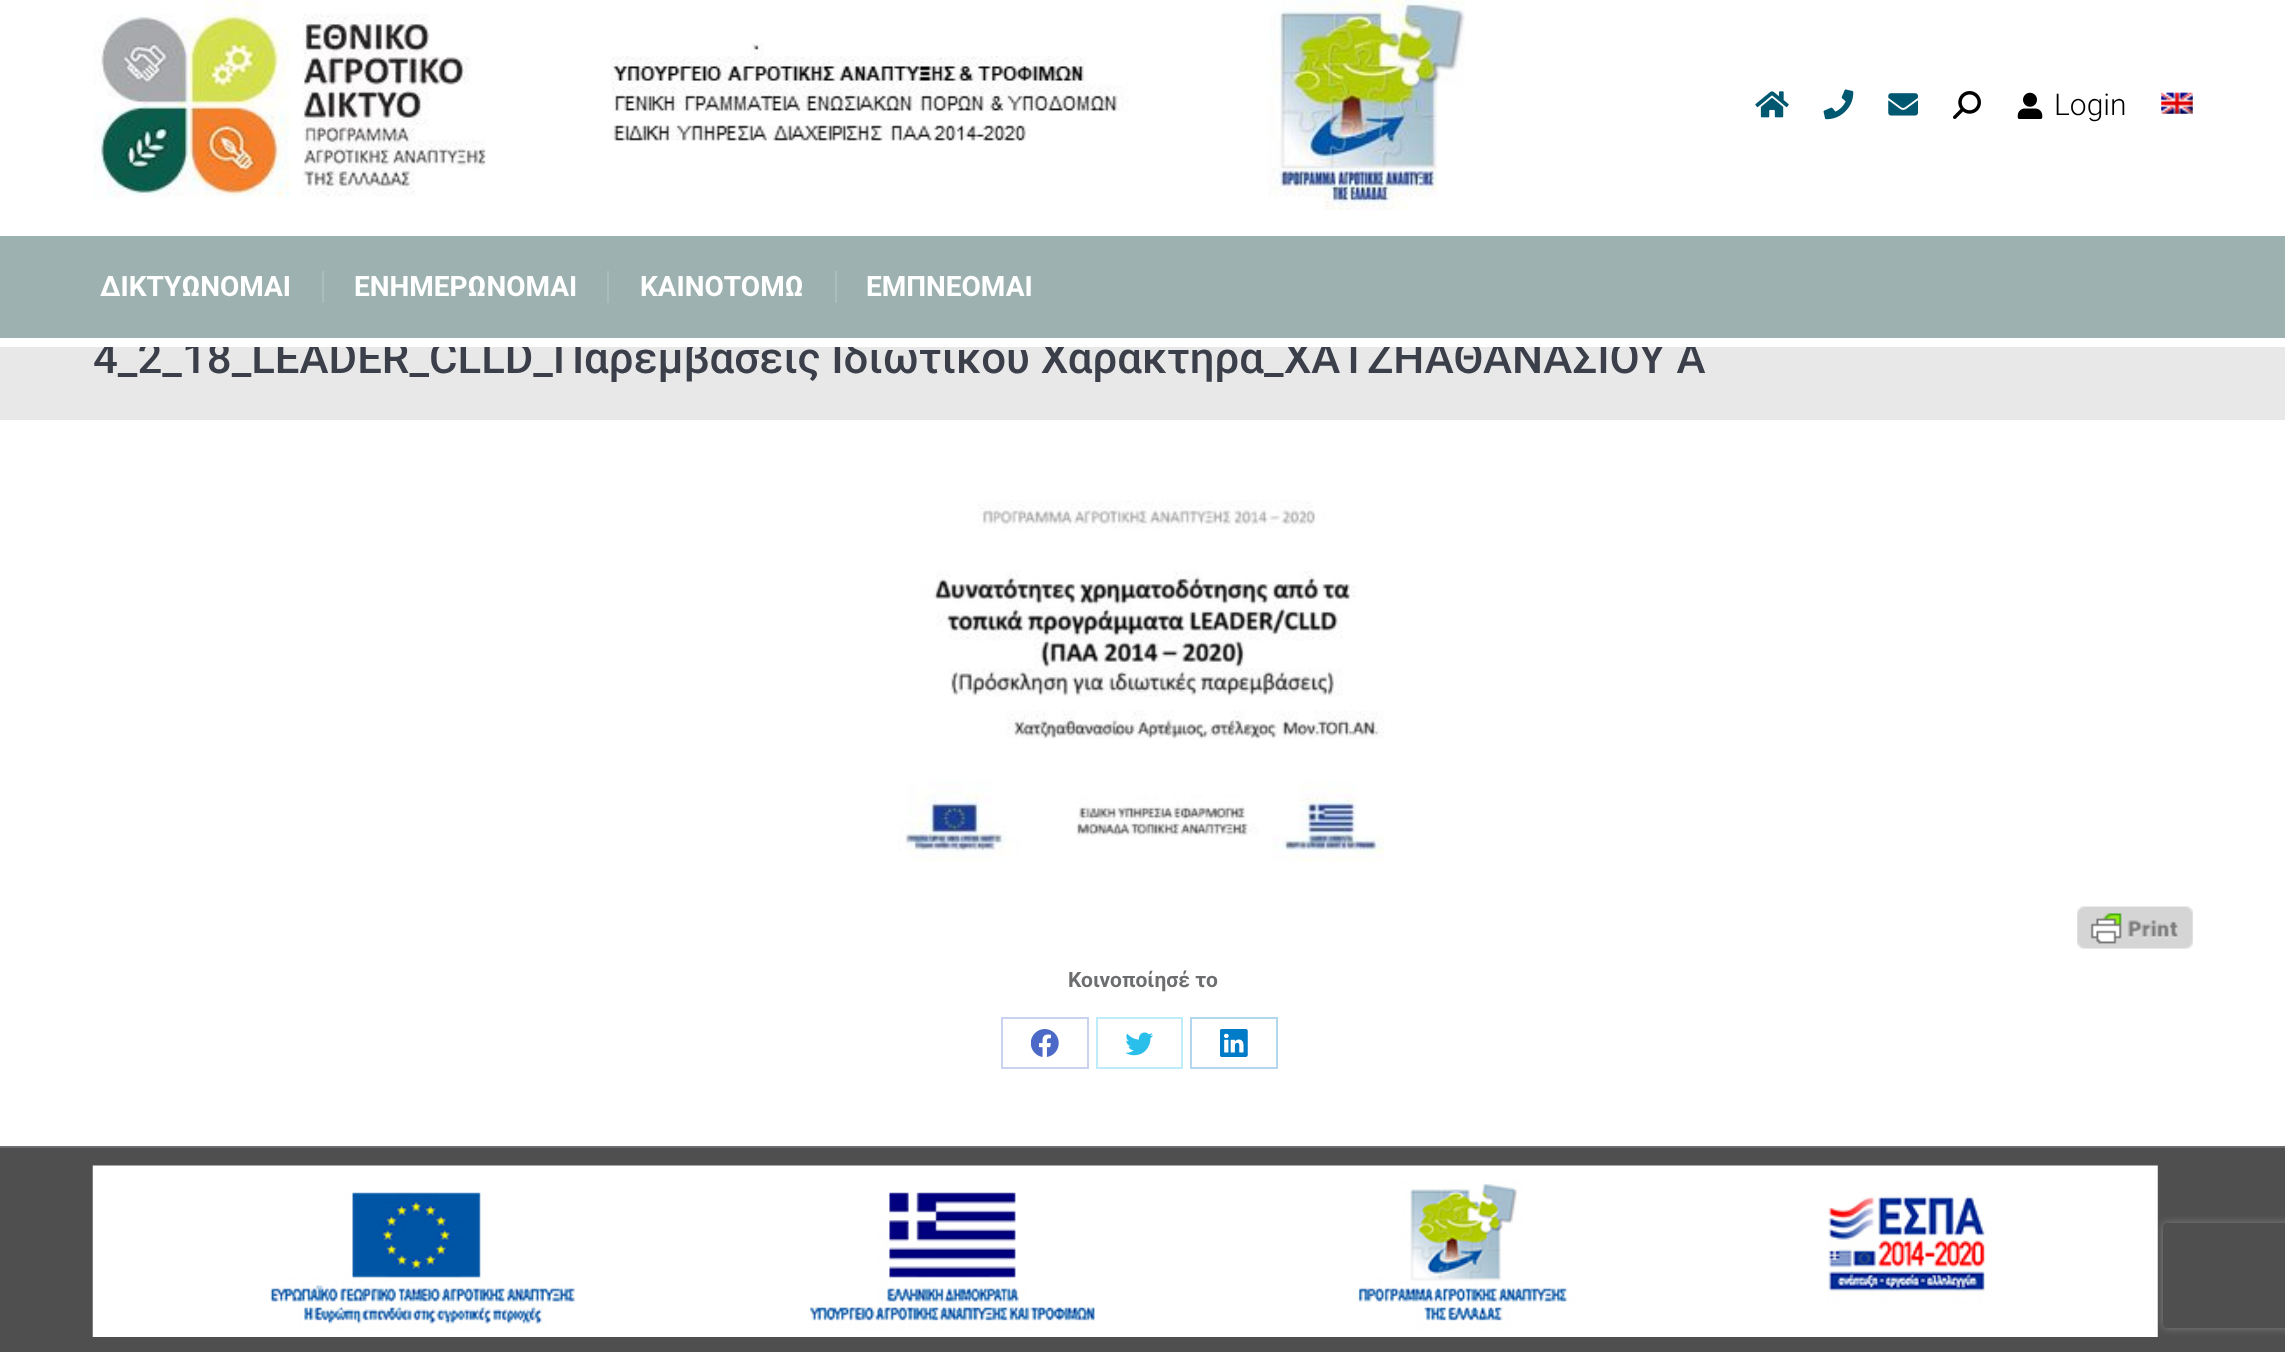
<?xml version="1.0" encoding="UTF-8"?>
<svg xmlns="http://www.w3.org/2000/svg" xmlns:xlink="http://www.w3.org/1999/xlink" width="2285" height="1352">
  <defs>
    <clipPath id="clip1"><path d="M 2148 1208 h 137 v 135 h -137 z m 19 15 h 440 c 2 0 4 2 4 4 v 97 c 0 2 -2 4 -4 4 h -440 c -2 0 -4 -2 -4 -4 v -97 c 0 -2 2 -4 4 -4 z" clip-rule="evenodd" /></clipPath>
  </defs>
  <rect width="100%" height="100%" fill="#ffffff" />
  <image x="93" y="0" width="1372" height="210" xlink:href="image1.png" />
  <image x="1755" y="91" width="34" height="27" xlink:href="image2.png" />
  <image x="1823" y="89" width="31" height="31" xlink:href="image3.png" />
  <image x="1888" y="93" width="30" height="23" xlink:href="image4.png" />
  <image x="1953" y="91" width="28" height="28" xlink:href="image5.png" />
  <image x="2017" y="92" width="26" height="27" xlink:href="image6.png" />
  <image x="2161" y="92" width="32" height="22" xlink:href="image7.png" />
  <rect y="236" width="2285" height="102" fill="#9cb1b0" />
  <rect x="322" y="271" width="2" height="32" fill="#aabcbb" />
  <rect x="607" y="271" width="2" height="32" fill="#aabcbb" />
  <rect x="835" y="271" width="2" height="32" fill="#aabcbb" />
  <rect y="347" width="2285" height="73" fill="#e8e8e8" />
  <image x="898" y="500" width="487" height="362" xlink:href="image8.png" />
  <image x="2077" y="906" width="116" height="43" xlink:href="image9.png" />
  <rect x="1002" y="1018" width="86" height="50" fill="none" stroke="#c9d2ee" stroke-width="2" />
  <image x="1031" y="1029" width="28" height="28" xlink:href="image10.png" />
  <rect x="1097" y="1018" width="85" height="50" fill="none" stroke="#bfecf9" stroke-width="2" />
  <image x="1125" y="1032" width="28" height="24" xlink:href="image11.png" />
  <rect x="1191" y="1018" width="86" height="50" fill="none" stroke="#b3d7ee" stroke-width="2" />
  <image x="1220" y="1029" width="28" height="28" xlink:href="image12.png" />
  <rect y="1148" width="2285" height="204" fill="#4f4f4f" />
  <rect y="1146" width="2285" height="2" fill="#6c6d71" />
  <g clip-path="url(#clip1)">
    <rect x="2163" y="1223" width="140" height="105" rx="4" fill="#808080" filter="blur(4.5px)" />
  </g>
  <image x="92" y="1165" width="2066" height="172" xlink:href="image13.png" />
  <text x="2054" y="115" style="font-family: Roboto; font-size: 30px; font-weight: 300; fill: #000000">Login</text>
  <text x="100" y="296" style="font-family: Roboto; font-size: 28px; font-weight: bold; fill: #ffffff">ΔΙΚΤΥΩΝΟΜΑΙ</text>
  <text x="354" y="296" style="font-family: Roboto; font-size: 28px; font-weight: bold; fill: #ffffff">ΕΝΗΜΕΡΩΝΟΜΑΙ</text>
  <text x="640" y="296" style="font-family: Roboto; font-size: 28px; font-weight: bold; fill: #ffffff">ΚΑΙΝΟΤΟΜΩ</text>
  <text x="866" y="296" style="font-family: Roboto; font-size: 28px; font-weight: bold; fill: #ffffff">ΕΜΠΝΕΟΜΑΙ</text>
  <text x="93" y="373" style="font-family: Roboto; font-size: 43.75px; font-weight: 500; fill: #3b3f4a">4_2_18_LEADER_CLLD_Παρεμβάσεις Ιδιωτικού Χαρακτήρα_ΧΑΤΖΗΑΘΑΝΑΣΙΟΥ Α</text>
  <rect x="104" y="338" width="1591" height="9" fill="#ffffff" />
  <text x="1068" y="987" style="font-family: Roboto; font-size: 21px; font-weight: bold; fill: #6d6e70">Κοινοποίησέ το</text>
</svg>
